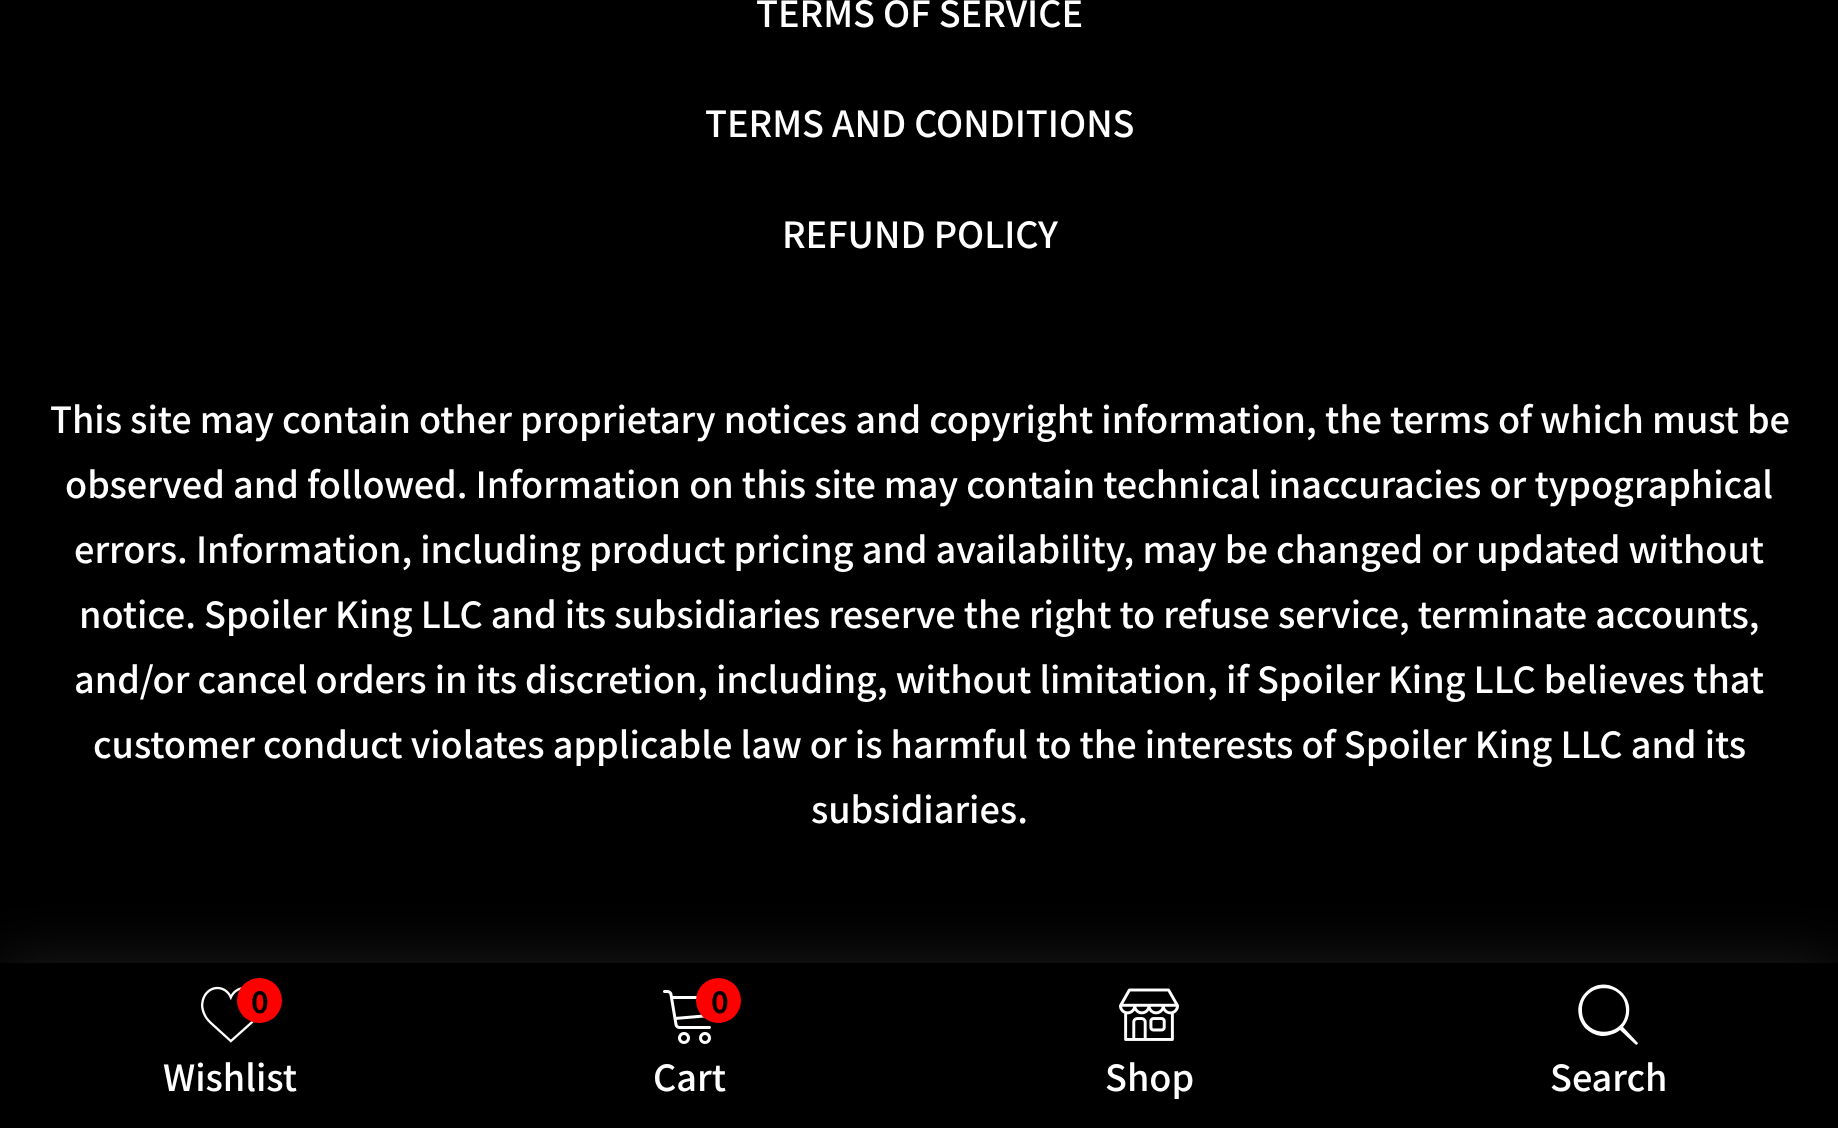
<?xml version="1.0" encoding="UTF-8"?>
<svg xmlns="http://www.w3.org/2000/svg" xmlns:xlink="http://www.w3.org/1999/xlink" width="1838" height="1128">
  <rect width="100%" height="100%" fill="#000000" />
  <rect y="960" width="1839" height="165" fill="#ffffff" fill-opacity="0.1" filter="blur(28.5px)" />
  <rect y="963" width="1838" height="165" fill="#000000" />
  <image x="201" y="986" width="53" height="57" xlink:href="image1.png" />
  <circle cx="259.5" cy="1000.5" r="22.5" fill="#ff0000" />
  <image x="663" y="990" width="48" height="54" xlink:href="image2.png" />
  <circle cx="718.5" cy="1000.5" r="22.5" fill="#ff0000" />
  <image x="1119" y="988" width="60" height="53" xlink:href="image3.png" />
  <path d="M 1637 1042 l -14 -15 c 5 -6 7 -13 6 -21 c -1 -7 -6 -14 -13 -18 c -25 -14 -50 18 -31 40 c 4 4 10 7 16 8 c 7 0 14 -2 19 -6 l 15 14 c 2 2 4 -1 2 -2 z m -55 -32 c 0 -29 44 -29 44 0 c 0 29 -44 29 -44 0 z" fill="#ffffff" />
  <text x="756" y="27" style="font-family: Noto Sans KR; font-size: 36px; font-weight: 500; fill: #ffffff">TERMS OF SERVICE</text>
  <text x="705" y="137" style="font-family: Noto Sans KR; font-size: 36px; font-weight: 500; fill: #ffffff">TERMS AND CONDITIONS</text>
  <text x="782" y="248" style="font-family: Noto Sans KR; font-size: 36px; font-weight: 500; fill: #ffffff">REFUND POLICY</text>
  <text x="50" y="433" style="font-family: Noto Sans KR; font-size: 36px; font-weight: 500; fill: #ffffff">This site may contain other proprietary notices and copyright information, the terms of which must be</text>
  <text x="65" y="498" style="font-family: Noto Sans KR; font-size: 36px; font-weight: 500; fill: #ffffff">observed and followed. Information on this site may contain technical inaccuracies or typographical</text>
  <text x="74" y="563" style="font-family: Noto Sans KR; font-size: 36px; font-weight: 500; fill: #ffffff">errors. Information, including product pricing and availability, may be changed or updated without</text>
  <text x="79" y="628" style="font-family: Noto Sans KR; font-size: 36px; font-weight: 500; fill: #ffffff">notice. Spoiler King LLC and its subsidiaries reserve the right to refuse service, terminate accounts,</text>
  <text x="74" y="693" style="font-family: Noto Sans KR; font-size: 36px; font-weight: 500; fill: #ffffff">and/or cancel orders in its discretion, including, without limitation, if Spoiler King LLC believes that</text>
  <text x="93" y="758" style="font-family: Noto Sans KR; font-size: 36px; font-weight: 500; fill: #ffffff">customer conduct violates applicable law or is harmful to the interests of Spoiler King LLC and its</text>
  <text x="811" y="823" style="font-family: Noto Sans KR; font-size: 36px; font-weight: 500; fill: #ffffff">subsidiaries.</text>
  <text x="251" y="1013" style="font-family: Noto Sans KR; font-size: 30px; font-weight: bold; letter-spacing: -3px; fill: #000000">0</text>
  <text x="163" y="1091" style="font-family: Noto Sans KR; font-size: 36px; font-weight: 500; fill: #ffffff">Wishlist</text>
  <text x="711" y="1013" style="font-family: Noto Sans KR; font-size: 30px; font-weight: bold; letter-spacing: -3px; fill: #000000">0</text>
  <text x="653" y="1091" style="font-family: Noto Sans KR; font-size: 36px; font-weight: 500; fill: #ffffff">Cart</text>
  <text x="1105" y="1091" style="font-family: Noto Sans KR; font-size: 36px; font-weight: 500; fill: #ffffff">Shop</text>
  <text x="1550" y="1091" style="font-family: Noto Sans KR; font-size: 36px; font-weight: 500; fill: #ffffff">Search</text>
</svg>
